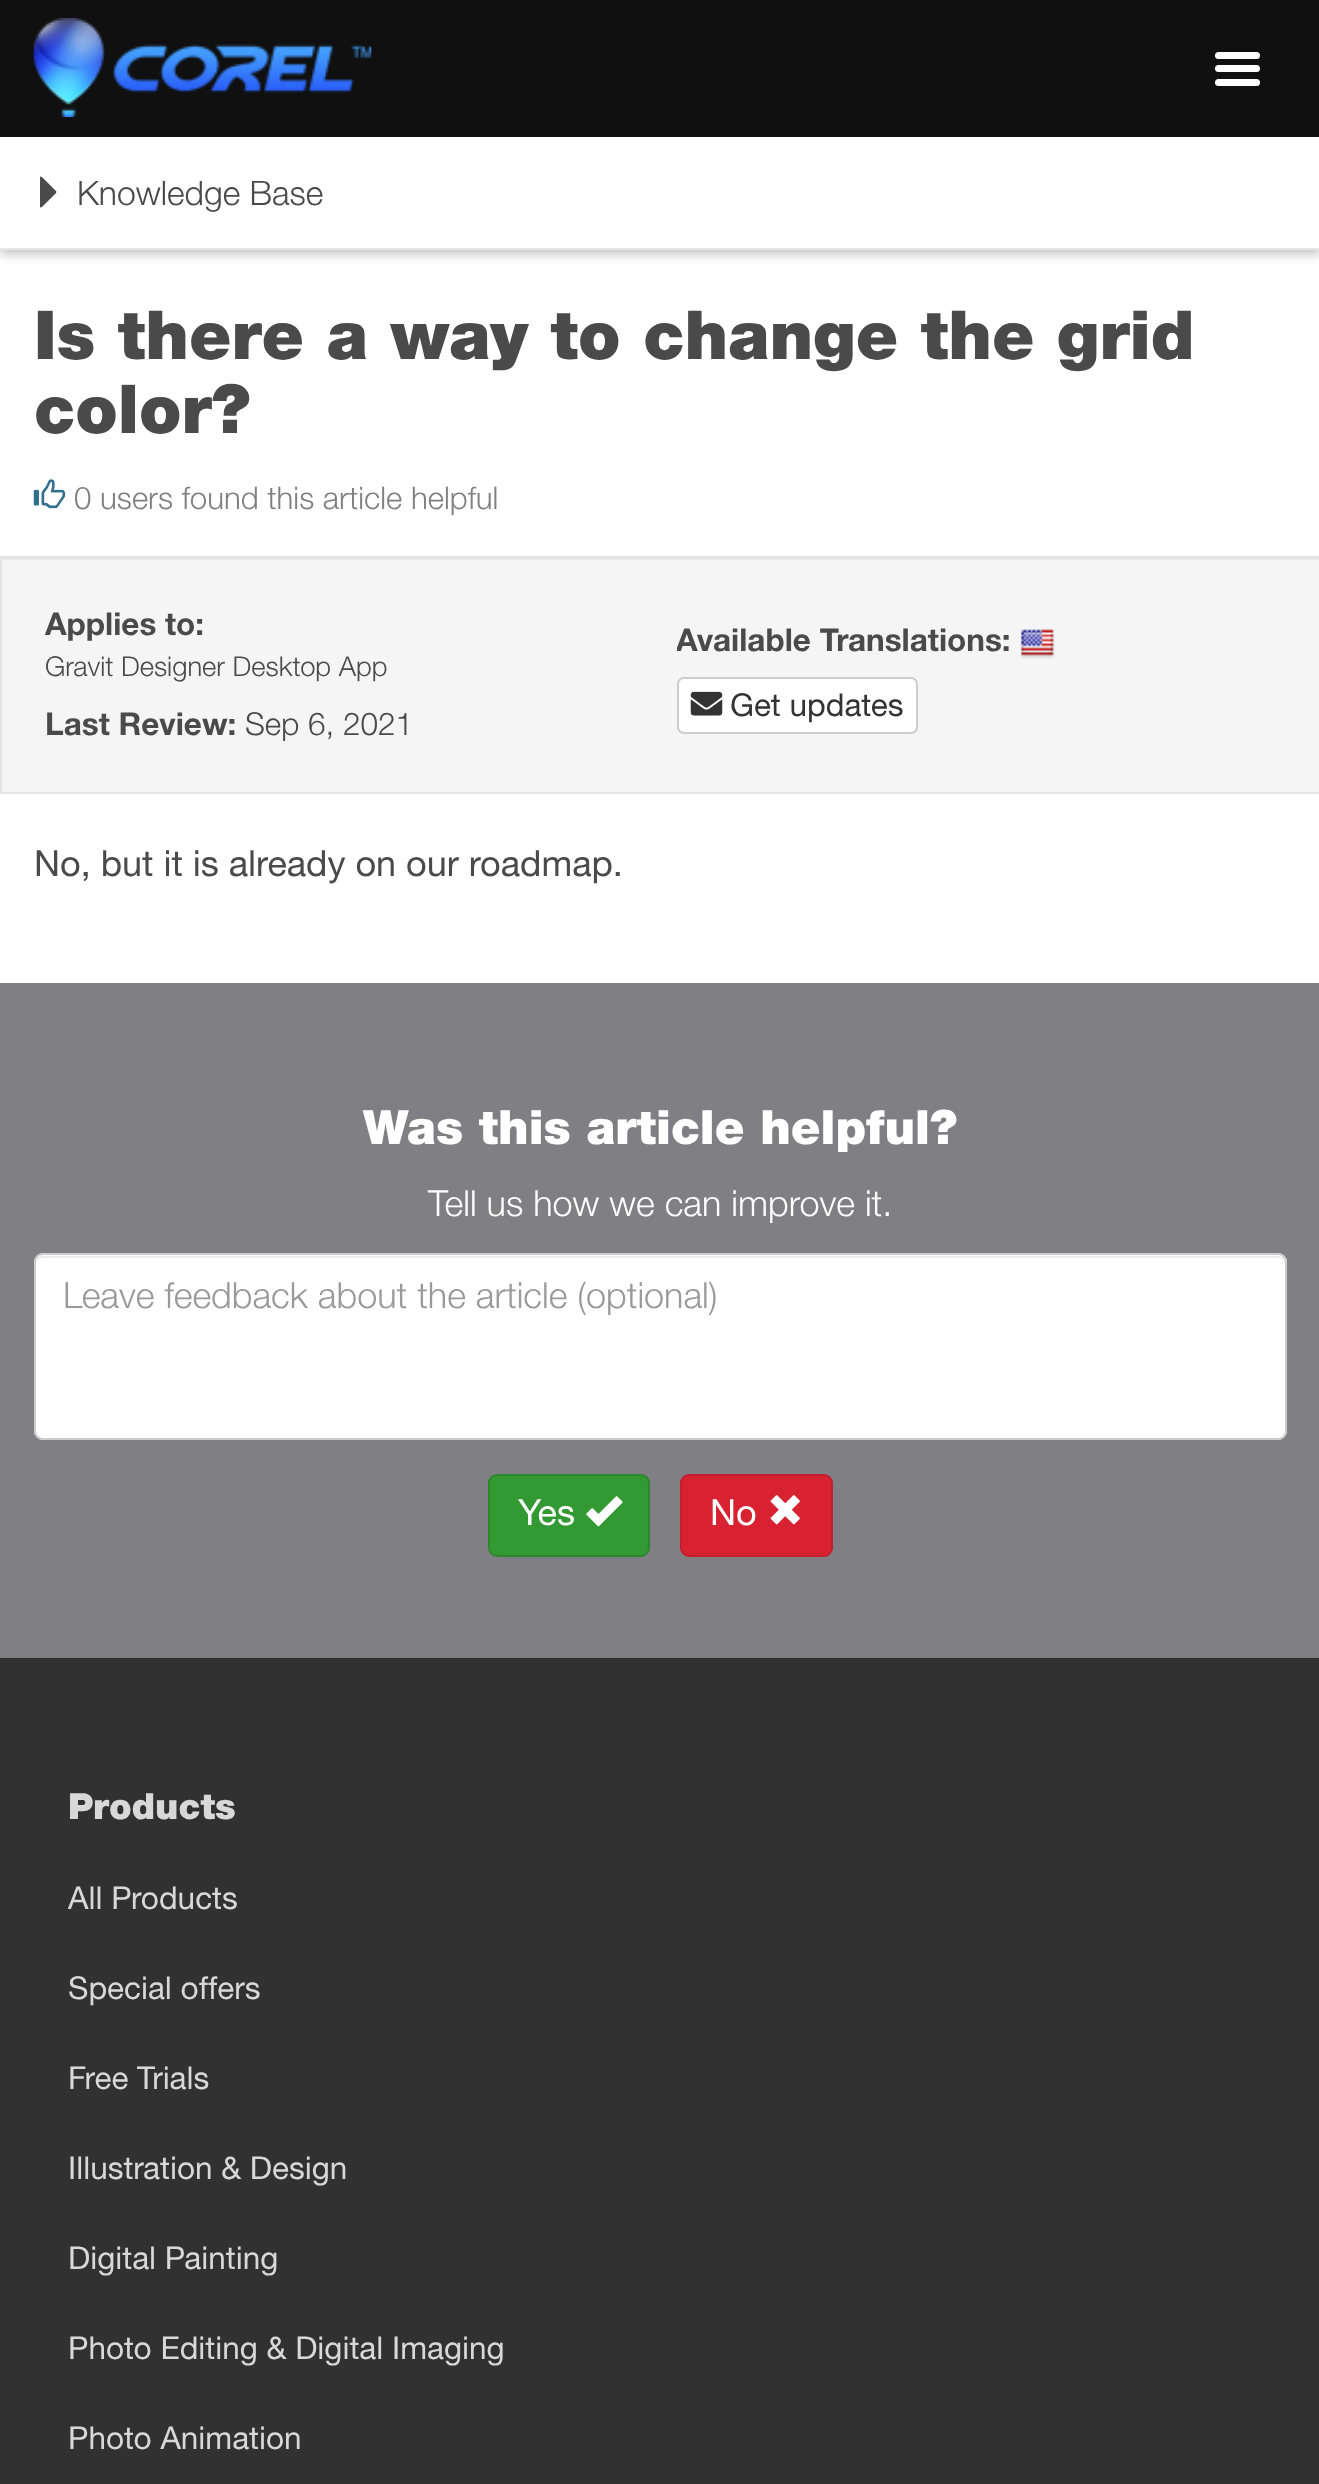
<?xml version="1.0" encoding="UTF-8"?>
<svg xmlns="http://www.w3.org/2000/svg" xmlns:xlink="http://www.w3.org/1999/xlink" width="1319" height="2484">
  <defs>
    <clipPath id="clip1"><rect x="677" y="617" width="599" height="45" /></clipPath>
  </defs>
  <rect width="100%" height="100%" fill="#ffffff" />
  <rect width="1319" height="137" fill="#101010" />
  <image x="33" y="18" width="339" height="99" xlink:href="image1.png" />
  <rect x="1215" y="52" width="45" height="7" rx="3.5" fill="#ffffff" />
  <rect x="1215" y="65" width="45" height="7" rx="3.5" fill="#ffffff" />
  <rect x="1215" y="79" width="45" height="7" rx="3.5" fill="#ffffff" />
  <rect y="144" width="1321" height="110" fill="#000000" fill-opacity="0.25" filter="blur(5.5px)" />
  <rect y="137" width="1319" height="111" fill="#ffffff" />
  <path d="M 0 248 v 2 h 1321 v -110 v 108 z" fill="#e6e6e6" />
  <path d="M 40 206 v -28 c 0 -4 4 1.5 4.5 1.5 l 11.5 11.5 c 1.5 1.5 -2 4 -2.5 4.5 l -7 7 c -3 3 -6.5 7.5 -6.5 3.5 z" fill="#4a4a4a" />
  <image x="33" y="479" width="33" height="30" xlink:href="image2.png" />
  <rect x="2" y="560" width="1317" height="232" fill="#f5f5f5" />
  <rect x="2" y="558" width="1317" height="2" fill="#e9e9e9" />
  <rect x="1" y="557" width="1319" height="236" fill="none" stroke="#e3e3e3" stroke-width="2" />
  <image x="1020" y="629" width="35" height="30" xlink:href="image3.png" />
  <rect x="678" y="678" width="239" height="55" rx="6" fill="#ffffff" stroke="#cccccc" stroke-width="2" />
  <image x="690" y="691" width="33" height="25" xlink:href="image4.png" />
  <rect y="983" width="1319" height="675" fill="#807f83" />
  <rect x="34" y="1253" width="1253" height="187" rx="9" fill="#ffffff" />
  <path d="M 43 1258 h 1235 c 4 0 7 3 7 6 c 0 -4 -2 -8 -7 -8 h -1235 c -5 0 -7 4 -7 8 c 0 -3 3 -6 7 -6 z" fill="#ececec" />
  <rect x="35" y="1254" width="1251" height="185" rx="8" fill="none" stroke="#cccccc" stroke-width="2" />
  <rect x="489" y="1475" width="160" height="81" rx="8" fill="#339933" stroke="#2d862d" stroke-width="2" />
  <image x="586" y="1496" width="37" height="31" xlink:href="image5.png" />
  <rect x="681" y="1475" width="151" height="81" rx="8" fill="#d92231" stroke="#c31f2c" stroke-width="2" />
  <image x="770" y="1495" width="30" height="30" xlink:href="image6.png" />
  <rect y="1658" width="1319" height="826" fill="#323132" />
  <text x="77" y="205" style="font-family: 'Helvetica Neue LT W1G'; font-size: 33.75px; font-weight: 300; fill: #4a4a4a">Knowledge Base</text>
  <text x="34" y="359" style="font-family: 'Helvetica Neue LT W1G'; font-size: 67.5px; font-weight: 900; fill: #4a4a4a">Is there a way to change the grid</text>
  <text x="34" y="433" style="font-family: 'Helvetica Neue LT W1G'; font-size: 67.5px; font-weight: 900; fill: #4a4a4a">color?</text>
  <text x="74" y="509" style="font-family: 'Helvetica Neue LT W1G'; font-size: 31.25px; font-weight: 300; fill: #807f83">0 users found this article helpful</text>
  <text x="45" y="635" style="font-family: 'Helvetica Neue LT W1G'; font-size: 31.5px; font-weight: bold; fill: #4a4a4a">Applies to:</text>
  <text x="45" y="676" style="font-family: 'Helvetica Neue LT W1G'; font-size: 27.4px; font-weight: 300; fill: #4a4a4a">Gravit Designer Desktop App</text>
  <g clip-path="url(#clip1)">
    <text x="676" y="651" style="font-family: 'Helvetica Neue LT W1G'; font-size: 31.5px; font-weight: bold; fill: #4a4a4a">Available Translations:</text>
  </g>
  <text x="730" y="716" style="font-family: 'Helvetica Neue LT W1G'; font-size: 31.5px; fill: #333333">Get updates</text>
  <text x="45" y="735" style="font-family: 'Helvetica Neue LT W1G'; font-size: 31.5px; font-weight: bold; fill: #4a4a4a">Last Review:</text>
  <text x="245" y="735" style="font-family: 'Helvetica Neue LT W1G'; font-size: 31.5px; font-weight: 300; fill: #4a4a4a">Sep 6, 2021</text>
  <text x="34" y="876" style="font-family: 'Helvetica Neue LT W1G'; font-size: 36px; fill: #4a4a4a">No, but it is already on our roadmap.</text>
  <text x="363" y="1144" style="font-family: 'Helvetica Neue LT W1G'; font-size: 47.25px; font-weight: 900; fill: #ffffff">Was this article helpful?</text>
  <text x="428" y="1216" style="font-family: 'Helvetica Neue LT W1G'; font-size: 36px; font-weight: 300; fill: #ffffff">Tell us how we can improve it.</text>
  <text x="63" y="1308" style="font-family: 'Helvetica Neue LT W1G'; font-size: 36px; font-weight: 300; fill: #999999">Leave feedback about the article (optional)</text>
  <text x="518" y="1525" style="font-family: 'Helvetica Neue LT W1G'; font-size: 36px; fill: #ffffff">Yes</text>
  <text x="710" y="1525" style="font-family: 'Helvetica Neue LT W1G'; font-size: 36px; fill: #ffffff">No</text>
  <text x="68" y="1819" style="font-family: 'Helvetica Neue LT W1G'; font-size: 36px; font-weight: 900; fill: #d8d8d8">Products</text>
  <text x="68" y="1909" style="font-family: 'Helvetica Neue LT W1G'; font-size: 31.5px; fill: #d8d8d8">All Products</text>
  <text x="68" y="1999" style="font-family: 'Helvetica Neue LT W1G'; font-size: 31.5px; fill: #d8d8d8">Special offers</text>
  <text x="68" y="2089" style="font-family: 'Helvetica Neue LT W1G'; font-size: 31.5px; fill: #d8d8d8">Free Trials</text>
  <text x="68" y="2179" style="font-family: 'Helvetica Neue LT W1G'; font-size: 31.5px; fill: #d8d8d8">Illustration &amp; Design</text>
  <text x="68" y="2269" style="font-family: 'Helvetica Neue LT W1G'; font-size: 31.5px; fill: #d8d8d8">Digital Painting</text>
  <text x="68" y="2359" style="font-family: 'Helvetica Neue LT W1G'; font-size: 31.5px; fill: #d8d8d8">Photo Editing &amp; Digital Imaging</text>
  <text x="68" y="2449" style="font-family: 'Helvetica Neue LT W1G'; font-size: 31.5px; fill: #d8d8d8">Photo Animation</text>
</svg>
